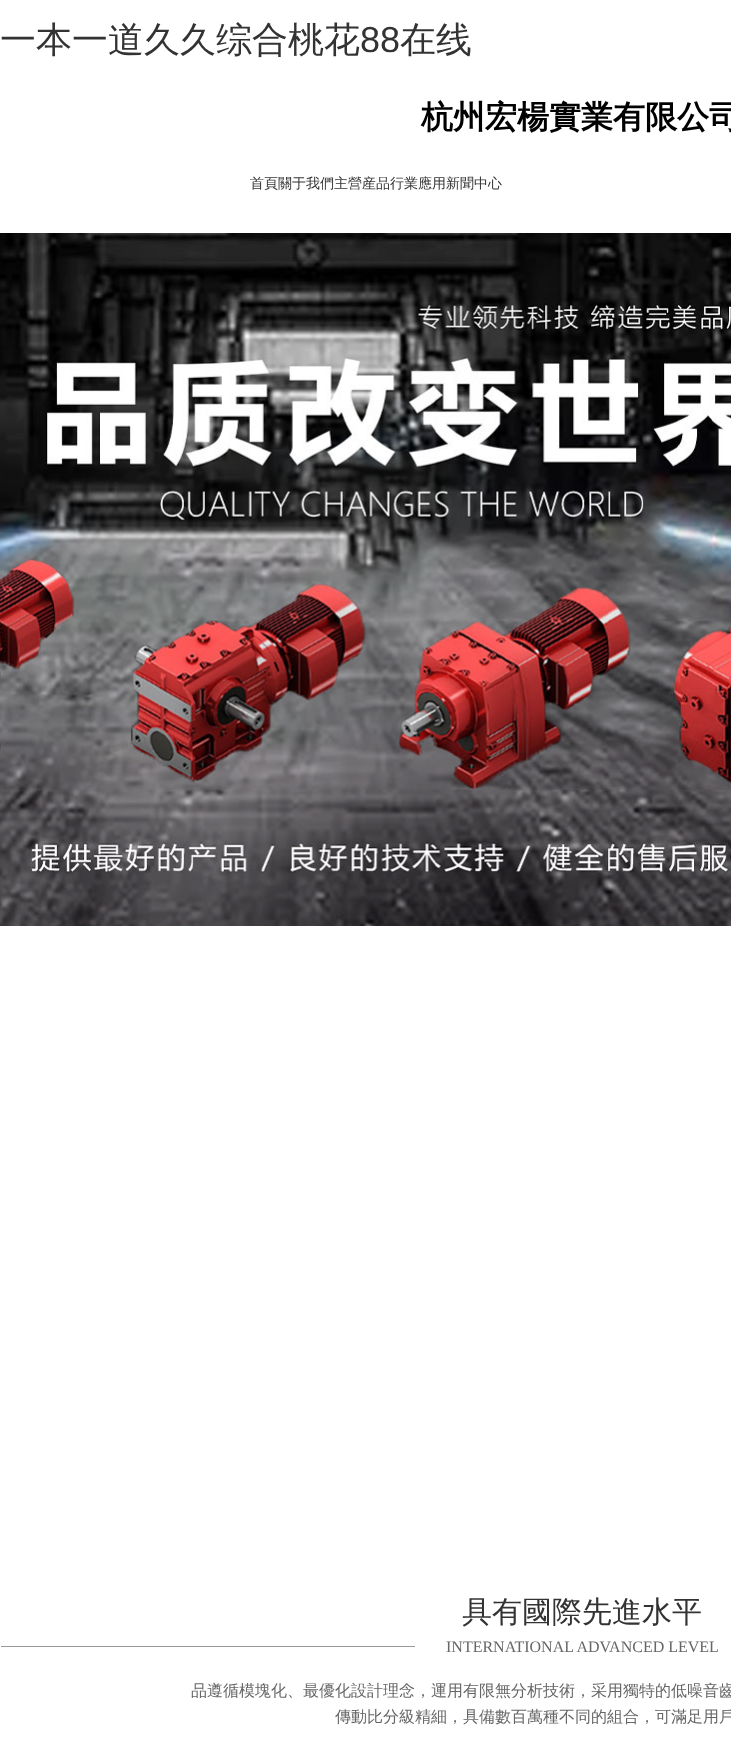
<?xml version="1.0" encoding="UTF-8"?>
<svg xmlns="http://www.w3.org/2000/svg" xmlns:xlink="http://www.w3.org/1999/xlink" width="731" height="1741">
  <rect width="100%" height="100%" fill="#ffffff" />
  <image x="0" y="233" width="731" height="693" xlink:href="image1.png" />
  <rect x="1" y="1646" width="414" height="1" fill="#999999" />
  <text x="0" y="52" style="font-family: WenQuanYi Zen Hei; font-size: 36px; font-weight: 500; fill: #333333">一本一道久久综合桃花</text>
  <text x="360" y="52" style="font-family: Liberation Sans; font-size: 36px; fill: #333333">88</text>
  <text x="400" y="52" style="font-family: WenQuanYi Zen Hei; font-size: 36px; font-weight: 500; fill: #333333">在线</text>
  <text x="421" y="128" style="font-family: WenQuanYi Zen Hei; font-size: 32px; font-weight: bold; fill: #000000">杭州宏楊實業有限公司</text>
  <text x="250" y="188" style="font-family: WenQuanYi Zen Hei; font-size: 14px; font-weight: 500; fill: #333333">首頁關于我們主營産品行業應用新聞中心</text>
  <text x="462" y="1622" style="font-family: WenQuanYi Zen Hei; font-size: 30px; font-weight: 500; fill: #333333">具有國際先進水平</text>
  <text x="446" y="1652" style="font-family: Liberation Serif; font-size: 16px; fill: #666666">INTERNATIONAL ADVANCED LEVEL</text>
  <text x="191" y="1696" style="font-family: WenQuanYi Zen Hei; font-size: 16px; font-weight: 500; fill: #666666">品遵循模塊化、最優化設計理念，運用有限無分析技術，采用獨特的低噪音齒</text>
  <text x="335" y="1722" style="font-family: WenQuanYi Zen Hei; font-size: 16px; font-weight: 500; fill: #666666">傳動比分級精細，具備數百萬種不同的組合，可滿足用戶</text>
</svg>
